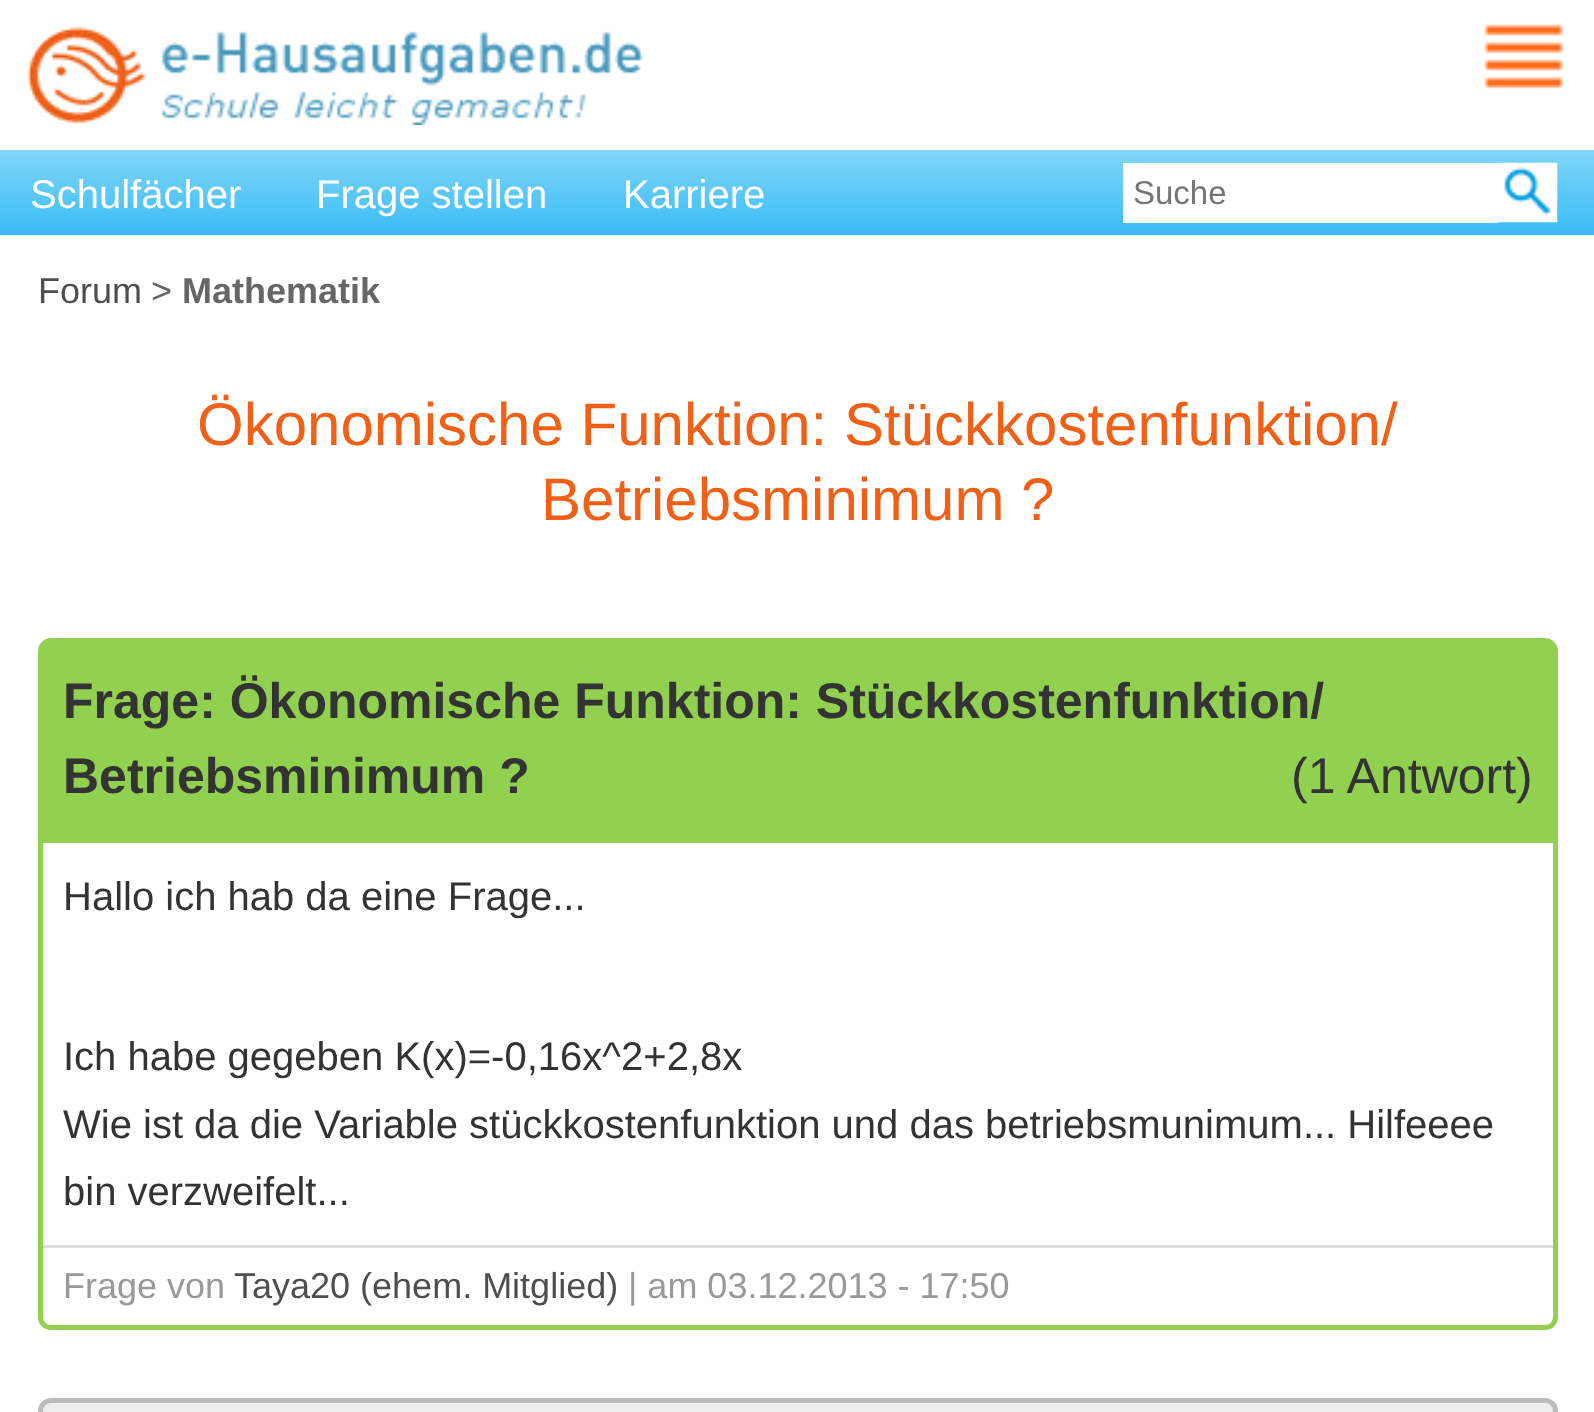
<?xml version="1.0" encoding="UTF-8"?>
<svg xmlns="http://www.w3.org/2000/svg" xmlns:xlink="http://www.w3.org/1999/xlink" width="1594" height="1412">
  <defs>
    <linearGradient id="g1" gradientUnits="userSpaceOnUse" x1="798" y1="150" x2="798" y2="235"><stop offset="0" stop-color="#81d5f9" /><stop offset="1" stop-color="#39bcf5" /></linearGradient>
  </defs>
  <rect width="100%" height="100%" fill="#ffffff" />
  <image x="27" y="26" width="617" height="99" xlink:href="image1.png" />
  <image x="1484" y="24" width="80" height="65" xlink:href="image2.png" />
  <rect y="150" width="1594" height="85" fill="url(#g1)" />
  <rect x="1123" y="163" width="375" height="60" fill="#ffffff" />
  <image x="1497" y="162" width="61" height="61" xlink:href="image3.png" />
  <path d="M 51 638 h 1494 c 7 0 13 6 13 13 v 187 h -1520 v -187 c 0 -7 6 -13 13 -13 z" fill="#92d050" />
  <path d="M 40.5 840.5 h 1515 v 476.5 c 0 6 -4.5 10.5 -10.5 10.5 h -1494 c -6 0 -10.5 -4.5 -10.5 -10.5 z" fill="none" stroke="#92d050" stroke-width="5" />
  <rect x="43" y="1245" width="1510" height="3" fill="#dddddd" />
  <rect x="40.5" y="1400.5" width="1515" height="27" rx="10.5" fill="#eeeeee" stroke="#bbbbbb" stroke-width="5" />
  <text x="30" y="208" style="font-family: Liberation Sans; font-size: 40px; fill: #ffffff">Schulfächer</text>
  <text x="316" y="208" style="font-family: Liberation Sans; font-size: 40px; fill: #ffffff">Frage stellen</text>
  <text x="623" y="208" style="font-family: Liberation Sans; font-size: 40px; fill: #ffffff">Karriere</text>
  <text x="1133" y="204" style="font-family: Liberation Sans; font-size: 33px; fill: #757575">Suche</text>
  <text x="38" y="303" style="font-family: Liberation Sans; font-size: 36px; fill: #4e4e4e">Forum</text>
  <text x="151" y="303" style="font-family: Liberation Sans; font-size: 36px; fill: #666666">&gt;</text>
  <text x="182" y="303" style="font-family: Liberation Sans; font-size: 36px; font-weight: bold; fill: #666666">Mathematik</text>
  <text x="197" y="445" style="font-family: Liberation Sans; font-size: 60px; fill: #f06016">Ökonomische Funktion: Stückkostenfunktion/</text>
  <text x="541" y="520" style="font-family: Liberation Sans; font-size: 60px; fill: #f06016">Betriebsminimum ?</text>
  <text x="63" y="718" style="font-family: Liberation Sans; font-size: 50px; font-weight: bold; fill: #333333">Frage: Ökonomische Funktion: Stückkostenfunktion/</text>
  <text x="63" y="793" style="font-family: Liberation Sans; font-size: 50px; font-weight: bold; fill: #333333">Betriebsminimum ?</text>
  <text x="1291" y="793" style="font-family: Liberation Sans; font-size: 50px; fill: #333333">(1 Antwort)</text>
  <text x="63" y="910" style="font-family: Liberation Sans; font-size: 40px; fill: #333333">Hallo ich hab da eine Frage...</text>
  <text x="63" y="1070" style="font-family: Liberation Sans; font-size: 40px; fill: #333333">Ich habe gegeben K(x)=-0,16x^2+2,8x</text>
  <text x="63" y="1138" style="font-family: Liberation Sans; font-size: 40px; fill: #333333">Wie ist da die Variable stückkostenfunktion und das betriebsmunimum... Hilfeeee</text>
  <text x="63" y="1205" style="font-family: Liberation Sans; font-size: 40px; fill: #333333">bin verzweifelt...</text>
  <text x="63" y="1298" style="font-family: Liberation Sans; font-size: 36px; fill: #999999">Frage von</text>
  <text x="234" y="1298" style="font-family: Liberation Sans; font-size: 36px; fill: #4e4e4e">Taya20 (ehem. Mitglied)</text>
  <text x="628" y="1298" style="font-family: Liberation Sans; font-size: 36px; fill: #999999">| am 03.12.2013 - 17:50</text>
</svg>
